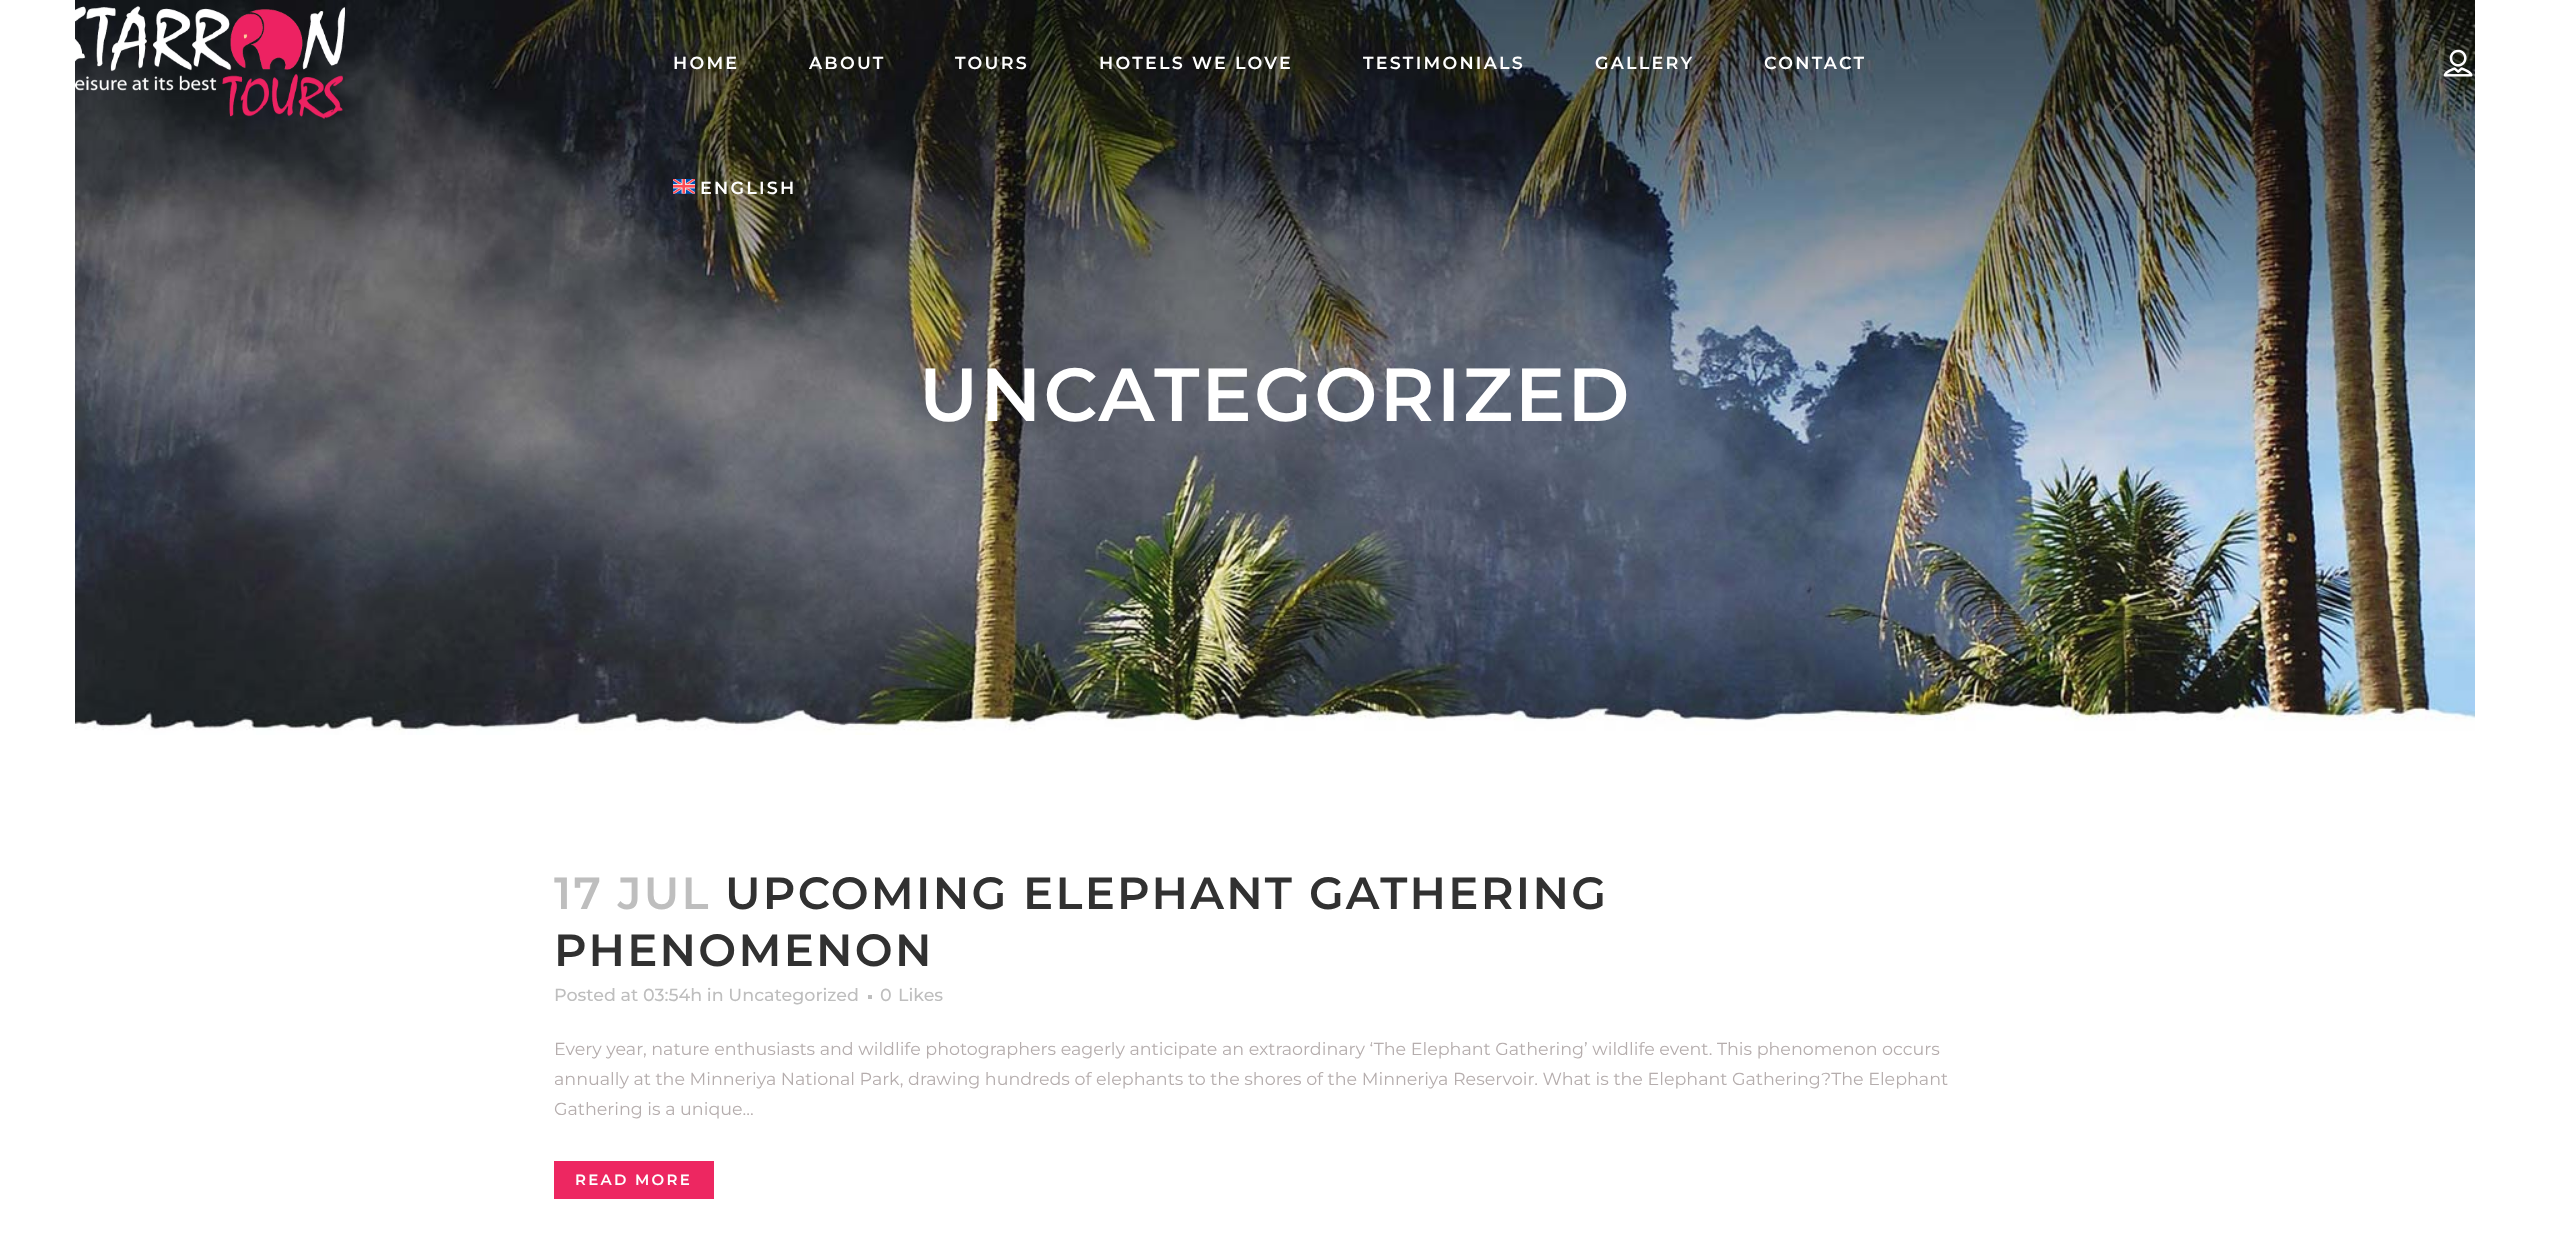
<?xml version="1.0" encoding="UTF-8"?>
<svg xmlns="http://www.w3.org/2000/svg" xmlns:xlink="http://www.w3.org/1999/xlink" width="2549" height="1249">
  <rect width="100%" height="100%" fill="#ffffff" />
  <image x="75" y="0" width="2400" height="735" xlink:href="image4.png" />
  <image x="75" y="6" width="270" height="113" xlink:href="image1.png" />
  <image x="673" y="179" width="22" height="15" xlink:href="image2.png" />
  <image x="2443" y="49" width="30" height="28" xlink:href="image3.png" />
  <rect x="868" y="995" width="4" height="4" fill="#bebebe" />
  <rect x="554" y="1161" width="160" height="38" fill="#ed2761" />
  <text x="673" y="69" style="font-family: Montserrat; font-size: 17.5px; font-weight: 600; letter-spacing: 2.25px; fill: #ffffff">HOME</text>
  <text x="809" y="69" style="font-family: Montserrat; font-size: 17.5px; font-weight: 600; letter-spacing: 2.25px; fill: #ffffff">ABOUT</text>
  <text x="955" y="69" style="font-family: Montserrat; font-size: 17.5px; font-weight: 600; letter-spacing: 2.25px; fill: #ffffff">TOURS</text>
  <text x="1099" y="69" style="font-family: Montserrat; font-size: 17.5px; font-weight: 600; letter-spacing: 2.25px; fill: #ffffff">HOTELS WE LOVE</text>
  <text x="1363" y="69" style="font-family: Montserrat; font-size: 17.5px; font-weight: 600; letter-spacing: 2.25px; fill: #ffffff">TESTIMONIALS</text>
  <text x="1595" y="69" style="font-family: Montserrat; font-size: 17.5px; font-weight: 600; letter-spacing: 2.25px; fill: #ffffff">GALLERY</text>
  <text x="1764" y="69" style="font-family: Montserrat; font-size: 17.5px; font-weight: 600; letter-spacing: 2.25px; fill: #ffffff">CONTACT</text>
  <text x="700" y="194" style="font-family: Montserrat; font-size: 17.5px; font-weight: 600; letter-spacing: 2.25px; fill: #ffffff">ENGLISH</text>
  <text x="919" y="421" style="font-family: Montserrat; font-size: 75px; font-weight: 600; letter-spacing: 2.25px; fill: #ffffff">UNCATEGORIZED</text>
  <text x="554" y="909" style="font-family: Montserrat; font-size: 45px; font-weight: 600; letter-spacing: 2.25px; fill: #bebebe">17 JUL</text>
  <text x="725" y="909" style="font-family: Montserrat; font-size: 45px; font-weight: 600; letter-spacing: 2.25px; fill: #313131">UPCOMING ELEPHANT GATHERING</text>
  <text x="554" y="966" style="font-family: Montserrat; font-size: 45px; font-weight: 600; letter-spacing: 2.25px; fill: #313131">PHENOMENON</text>
  <text x="554" y="1001" style="font-family: Montserrat; font-size: 17.5px; font-weight: 500; fill: #bebebe">Posted at 03:54h in Uncategorized</text>
  <text x="880" y="1001" style="font-family: Montserrat; font-size: 17.5px; font-weight: 500; fill: #bebebe">0</text>
  <text x="898" y="1001" style="font-family: Montserrat; font-size: 17.5px; font-weight: 500; fill: #bebebe">Likes</text>
  <text x="554" y="1055" style="font-family: Montserrat; font-size: 17.5px; fill: #b5adad">Every year, nature enthusiasts and wildlife photographers eagerly anticipate an extraordinary ‘The Elephant Gathering’ wildlife event. This phenomenon occurs</text>
  <text x="554" y="1085" style="font-family: Montserrat; font-size: 17.5px; fill: #b5adad">annually at the Minneriya National Park, drawing hundreds of elephants to the shores of the Minneriya Reservoir. What is the Elephant Gathering?The Elephant</text>
  <text x="554" y="1115" style="font-family: Montserrat; font-size: 17.5px; fill: #b5adad">Gathering is a unique...</text>
  <text x="575" y="1185" style="font-family: Montserrat; font-size: 15px; font-weight: 600; letter-spacing: 2.25px; fill: #ffffff">READ MORE</text>
</svg>
